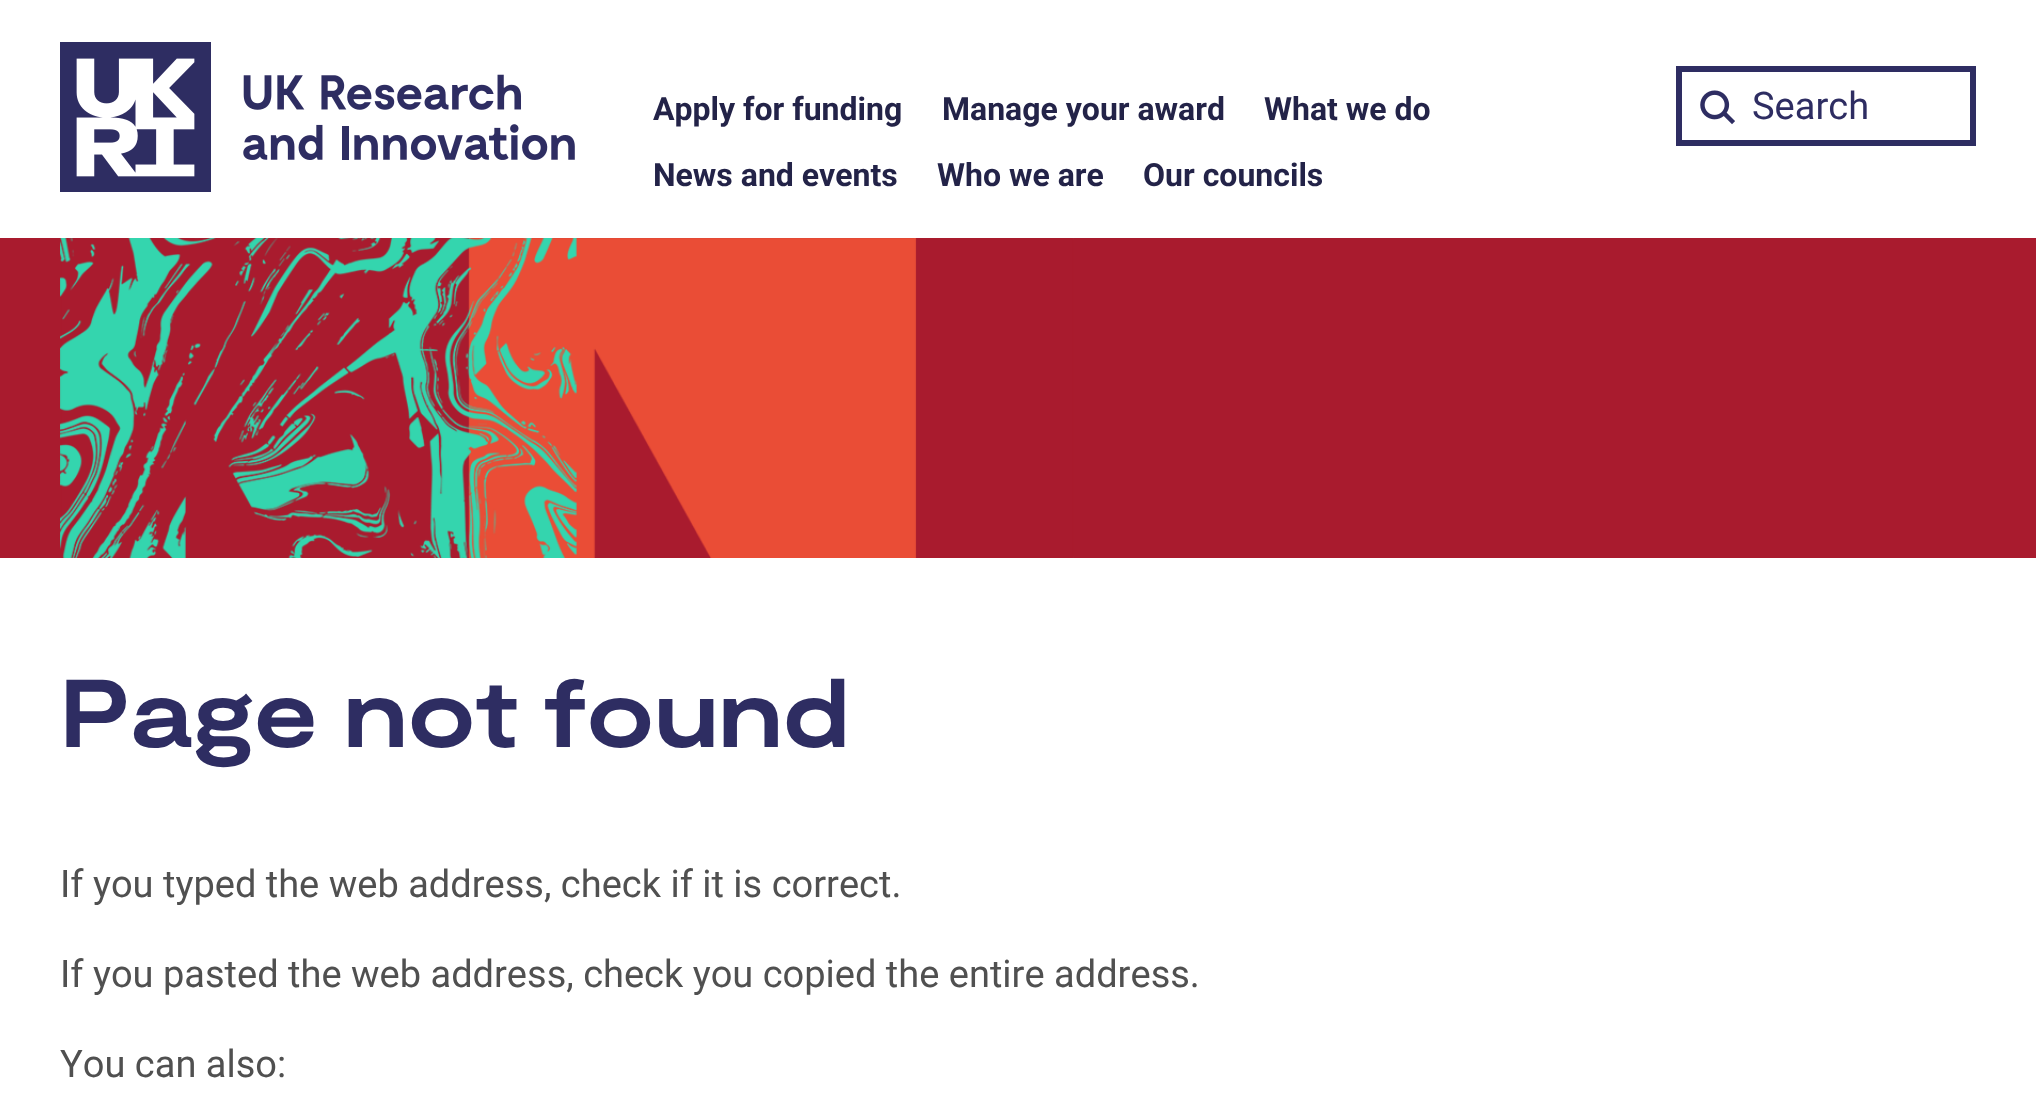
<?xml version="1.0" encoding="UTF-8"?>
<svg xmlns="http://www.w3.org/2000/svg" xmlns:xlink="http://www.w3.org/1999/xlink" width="2036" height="1103">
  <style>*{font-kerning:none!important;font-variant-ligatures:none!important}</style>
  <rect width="100%" height="100%" fill="#ffffff" />
  <image x="60" y="42" width="515" height="150" xlink:href="image1.png" />
  <image x="1700" y="90" width="35" height="35" xlink:href="image2.png" />
  <rect x="1679" y="69" width="294" height="74" fill="none" stroke="#2e2d62" stroke-width="6" />
  <rect y="238" width="2036" height="320" fill="#a91b2e" />
  <image x="60" y="238" width="1014" height="320" xlink:href="image3.png" />
  <text x="653" y="120" style="font-family: Roboto; font-size: 32px; font-weight: bold; fill: #232348">Apply for funding</text>
  <text x="942" y="120" style="font-family: Roboto; font-size: 32px; font-weight: bold; fill: #232348">Manage your award</text>
  <text x="1264" y="120" style="font-family: Roboto; font-size: 32px; font-weight: bold; fill: #232348">What we do</text>
  <text x="653" y="186" style="font-family: Roboto; font-size: 32px; font-weight: bold; fill: #232348">News and events</text>
  <text x="937" y="186" style="font-family: Roboto; font-size: 32px; font-weight: bold; fill: #232348">Who we are</text>
  <text x="1143" y="186" style="font-family: Roboto; font-size: 32px; font-weight: bold; fill: #232348">Our councils</text>
  <text x="1752" y="119" style="font-family: Roboto; font-size: 38px; fill: #2e2d62">Search</text>
  <text x="60" y="747" style="font-family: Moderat; font-size: 96px; font-weight: bold; fill: #2e2d62">Page not found</text>
  <text x="60" y="897" style="font-family: Roboto; font-size: 38px; fill: #505050">If you typed the web address, check if it is correct.</text>
  <text x="60" y="987" style="font-family: Roboto; font-size: 38px; fill: #505050">If you pasted the web address, check you copied the entire address.</text>
  <text x="60" y="1077" style="font-family: Roboto; font-size: 38px; fill: #505050">You can also:</text>
</svg>
